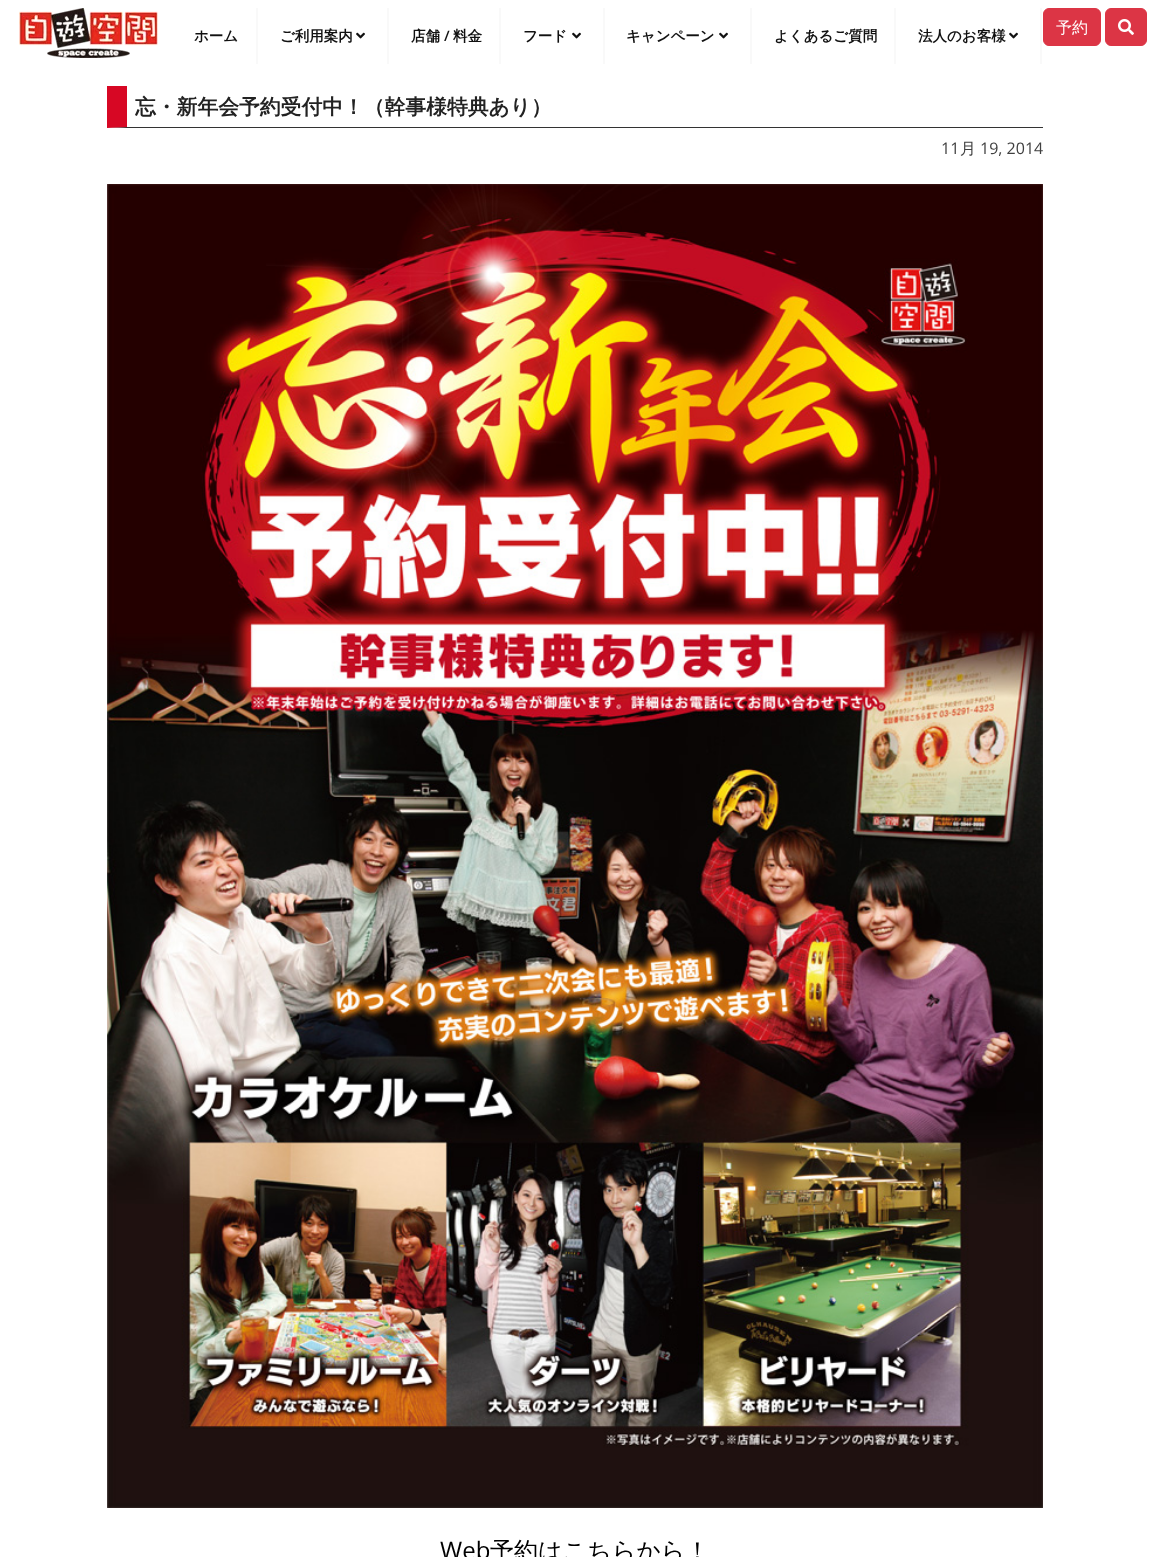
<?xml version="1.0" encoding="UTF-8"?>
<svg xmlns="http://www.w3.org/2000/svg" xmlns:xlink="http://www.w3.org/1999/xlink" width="1150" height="1557">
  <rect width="100%" height="100%" fill="#ffffff" />
  <image x="19" y="8" width="139" height="50" xlink:href="image1.png" />
  <rect x="256" y="8" width="2" height="56" fill="#f9f9f9" />
  <rect x="387" y="8" width="2" height="56" fill="#f9f9f9" />
  <image x="356" y="32" width="9" height="7" xlink:href="image2.png" />
  <rect x="499" y="8" width="2" height="56" fill="#f9f9f9" />
  <rect x="603" y="8" width="2" height="56" fill="#f9f9f9" />
  <image x="572" y="32" width="9" height="7" xlink:href="image2.png" />
  <rect x="750" y="8" width="2" height="56" fill="#f9f9f9" />
  <image x="719" y="32" width="9" height="7" xlink:href="image2.png" />
  <rect x="894" y="8" width="2" height="56" fill="#f9f9f9" />
  <rect x="1040" y="8" width="2" height="56" fill="#f9f9f9" />
  <image x="1009" y="32" width="9" height="7" xlink:href="image2.png" />
  <rect x="1043.5" y="8.5" width="57" height="37" rx="5.5" fill="#dc3545" stroke="#dc3545" />
  <rect x="1105.5" y="8.5" width="41" height="37" rx="5.5" fill="#dc3545" stroke="#dc3545" />
  <image x="1118" y="19" width="16" height="16" xlink:href="image3.png" />
  <path d="M 1043 128 h -936 l 20 -1 h 916 z" fill="#333333" />
  <path d="M 107 128 v -42 h 20 v 41 z" fill="#d70724" />
  <image x="107" y="184" width="936" height="1324" xlink:href="image4.png" />
  <text x="194" y="41" style="font-family: WenQuanYi Zen Hei; font-size: 14.5px; font-weight: bold; fill: #111111">ホーム</text>
  <text x="280" y="41" style="font-family: WenQuanYi Zen Hei; font-size: 14.5px; font-weight: bold; fill: #111111">ご利用案内</text>
  <text x="411" y="41" style="font-family: WenQuanYi Zen Hei; font-size: 14.5px; font-weight: bold; fill: #111111">店舗</text>
  <text x="444" y="41" style="font-family: Open Sans; font-size: 14.5px; font-weight: 600; fill: #111111">/</text>
  <text x="453" y="41" style="font-family: WenQuanYi Zen Hei; font-size: 14.5px; font-weight: bold; fill: #111111">料金</text>
  <text x="523" y="41" style="font-family: WenQuanYi Zen Hei; font-size: 14.5px; font-weight: bold; fill: #111111">フード</text>
  <text x="626" y="41" style="font-family: WenQuanYi Zen Hei; font-size: 14.5px; font-weight: bold; fill: #111111">キャンペーン</text>
  <text x="774" y="41" style="font-family: WenQuanYi Zen Hei; font-size: 14.5px; font-weight: bold; fill: #111111">よくあるご質問</text>
  <text x="918" y="41" style="font-family: WenQuanYi Zen Hei; font-size: 14.5px; font-weight: bold; fill: #111111">法人のお客様</text>
  <text x="1056" y="33" style="font-family: WenQuanYi Zen Hei; font-size: 16px; font-weight: 500; fill: #ffffff">予約</text>
  <text x="135" y="114" style="font-family: WenQuanYi Zen Hei; font-size: 20.8px; font-weight: bold; fill: #222222">忘・新年会予約受付中！（幹事様特典あり）</text>
  <text x="941" y="154" style="font-family: Open Sans; font-size: 16px; fill: #404040">11</text>
  <text x="960" y="154" style="font-family: WenQuanYi Zen Hei; font-size: 16px; font-weight: 500; fill: #404040">月</text>
  <text x="980" y="154" style="font-family: Open Sans; font-size: 16px; fill: #404040">19, 2014</text>
  <text x="440" y="1559" style="font-family: Open Sans; font-size: 24px; fill: #000000">Web</text>
  <text x="490" y="1559" style="font-family: WenQuanYi Zen Hei; font-size: 24px; font-weight: 500; fill: #000000">予約はこちらから！</text>
</svg>
